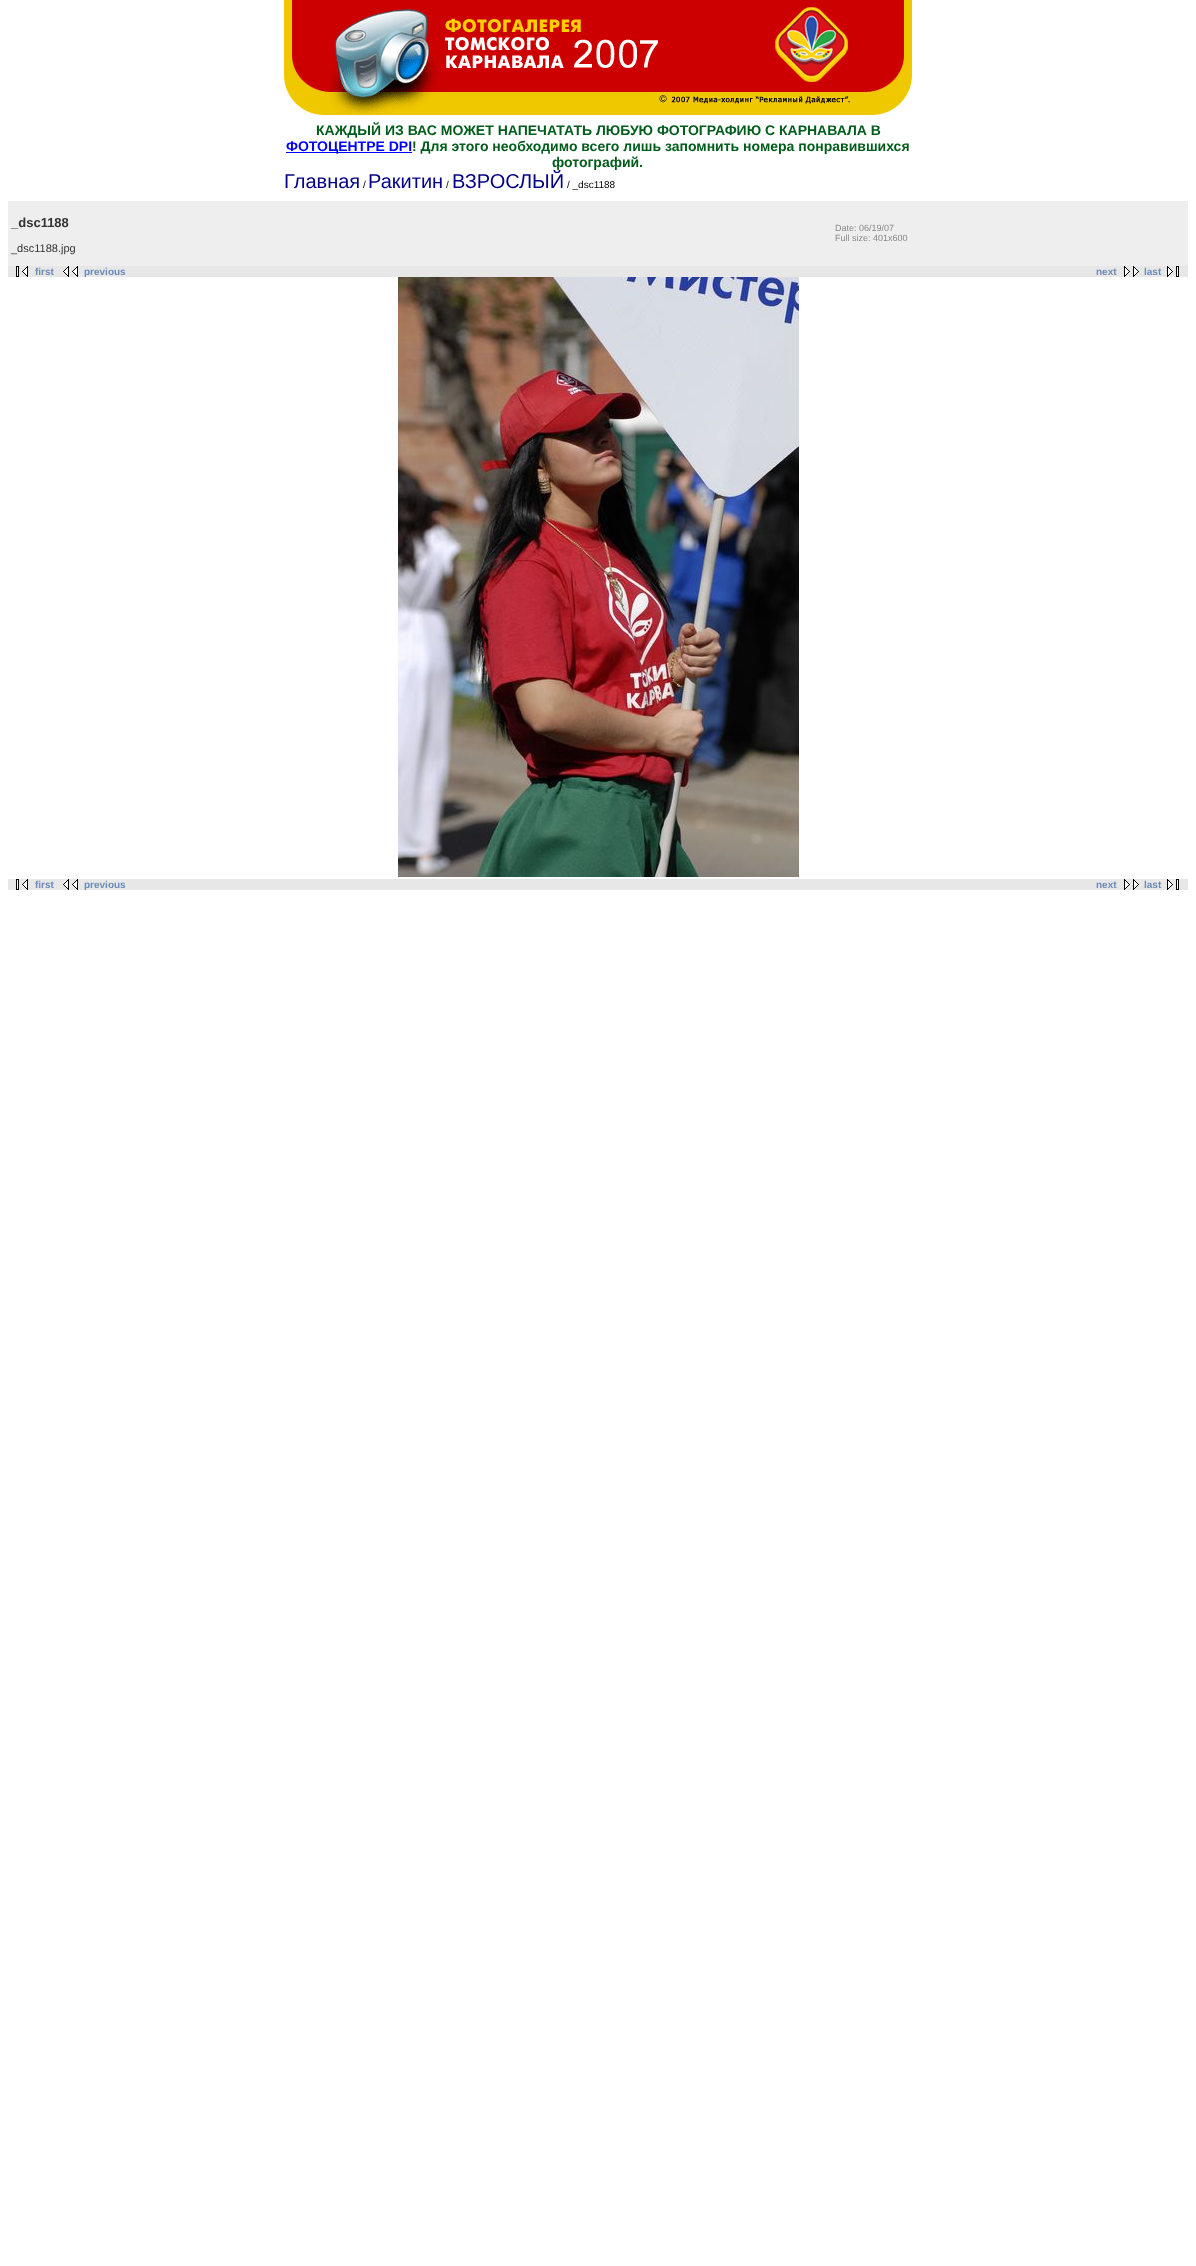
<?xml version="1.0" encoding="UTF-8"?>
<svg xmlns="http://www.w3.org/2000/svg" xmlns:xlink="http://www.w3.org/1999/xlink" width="1196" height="2266">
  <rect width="100%" height="100%" fill="#ffffff" />
  <image x="284" y="0" width="628" height="116" xlink:href="image1.png" />
  <rect x="286" y="152" width="126" height="1" fill="#0000ff" />
  <rect x="8" y="201" width="1180" height="65" fill="#eeeeee" />
  <rect x="8" y="266" width="1180" height="11" fill="#e7e7e7" />
  <image x="16" y="266" width="12" height="11" xlink:href="image2.png" />
  <image x="63" y="266" width="15" height="11" xlink:href="image3.png" />
  <image x="1124" y="266" width="15" height="11" xlink:href="image4.png" />
  <image x="1167" y="266" width="12" height="11" xlink:href="image5.png" />
  <image x="398" y="277" width="401" height="600" xlink:href="image6.png" />
  <rect x="8" y="879" width="1180" height="11" fill="#e7e7e7" />
  <image x="16" y="879" width="12" height="11" xlink:href="image2.png" />
  <image x="63" y="879" width="15" height="11" xlink:href="image3.png" />
  <image x="1124" y="879" width="15" height="11" xlink:href="image4.png" />
  <image x="1167" y="879" width="12" height="11" xlink:href="image5.png" />
  <text x="316" y="135" style="font-family: Liberation Sans; font-size: 14px; font-weight: bold; fill: #005c1a">КАЖДЫЙ ИЗ ВАС МОЖЕТ НАПЕЧАТАТЬ ЛЮБУЮ ФОТОГРАФИЮ С КАРНАВАЛА В</text>
  <text x="286" y="151" style="font-family: Liberation Sans; font-size: 14px; font-weight: bold; fill: #0000ff">ФОТОЦЕНТРЕ DPI</text>
  <text x="412" y="151" style="font-family: Liberation Sans; font-size: 14px; font-weight: bold; fill: #005c1a">! Для этого необходимо всего лишь запомнить номера понравившихся</text>
  <text x="552" y="167" style="font-family: Liberation Sans; font-size: 14px; font-weight: bold; fill: #005c1a">фотографий.</text>
  <text x="284" y="188" style="font-family: Liberation Sans; font-size: 20px; fill: #000088">Главная</text>
  <text x="363" y="188" style="font-family: Liberation Sans; font-size: 10px; fill: #000000">/</text>
  <text x="368" y="188" style="font-family: Liberation Sans; font-size: 20px; fill: #000088">Ракитин</text>
  <text x="446" y="188" style="font-family: Liberation Sans; font-size: 10px; fill: #000000">/</text>
  <text x="452" y="188" style="font-family: Liberation Sans; font-size: 20px; fill: #000088">ВЗРОСЛЫЙ</text>
  <text x="567" y="188" style="font-family: Liberation Sans; font-size: 10px; fill: #000000">/ _dsc1188</text>
  <text x="11" y="227" style="font-family: Liberation Sans; font-size: 13px; font-weight: bold; fill: #333333">_dsc1188</text>
  <text x="11" y="252" style="font-family: Liberation Sans; font-size: 11px; fill: #333333">_dsc1188.jpg</text>
  <text x="835" y="231" style="font-family: Liberation Sans; font-size: 9px; fill: #888888">Date: 06/19/07</text>
  <text x="835" y="241" style="font-family: Liberation Sans; font-size: 9px; fill: #888888">Full size: 401x600</text>
  <text x="35" y="275" style="font-family: Liberation Sans; font-size: 10px; font-weight: bold; fill: #6b8cb7">first</text>
  <text x="84" y="275" style="font-family: Liberation Sans; font-size: 10px; font-weight: bold; fill: #6b8cb7">previous</text>
  <text x="1096" y="275" style="font-family: Liberation Sans; font-size: 10px; font-weight: bold; fill: #6b8cb7">next</text>
  <text x="1144" y="275" style="font-family: Liberation Sans; font-size: 10px; font-weight: bold; fill: #6b8cb7">last</text>
  <text x="35" y="888" style="font-family: Liberation Sans; font-size: 10px; font-weight: bold; fill: #6b8cb7">first</text>
  <text x="84" y="888" style="font-family: Liberation Sans; font-size: 10px; font-weight: bold; fill: #6b8cb7">previous</text>
  <text x="1096" y="888" style="font-family: Liberation Sans; font-size: 10px; font-weight: bold; fill: #6b8cb7">next</text>
  <text x="1144" y="888" style="font-family: Liberation Sans; font-size: 10px; font-weight: bold; fill: #6b8cb7">last</text>
</svg>
